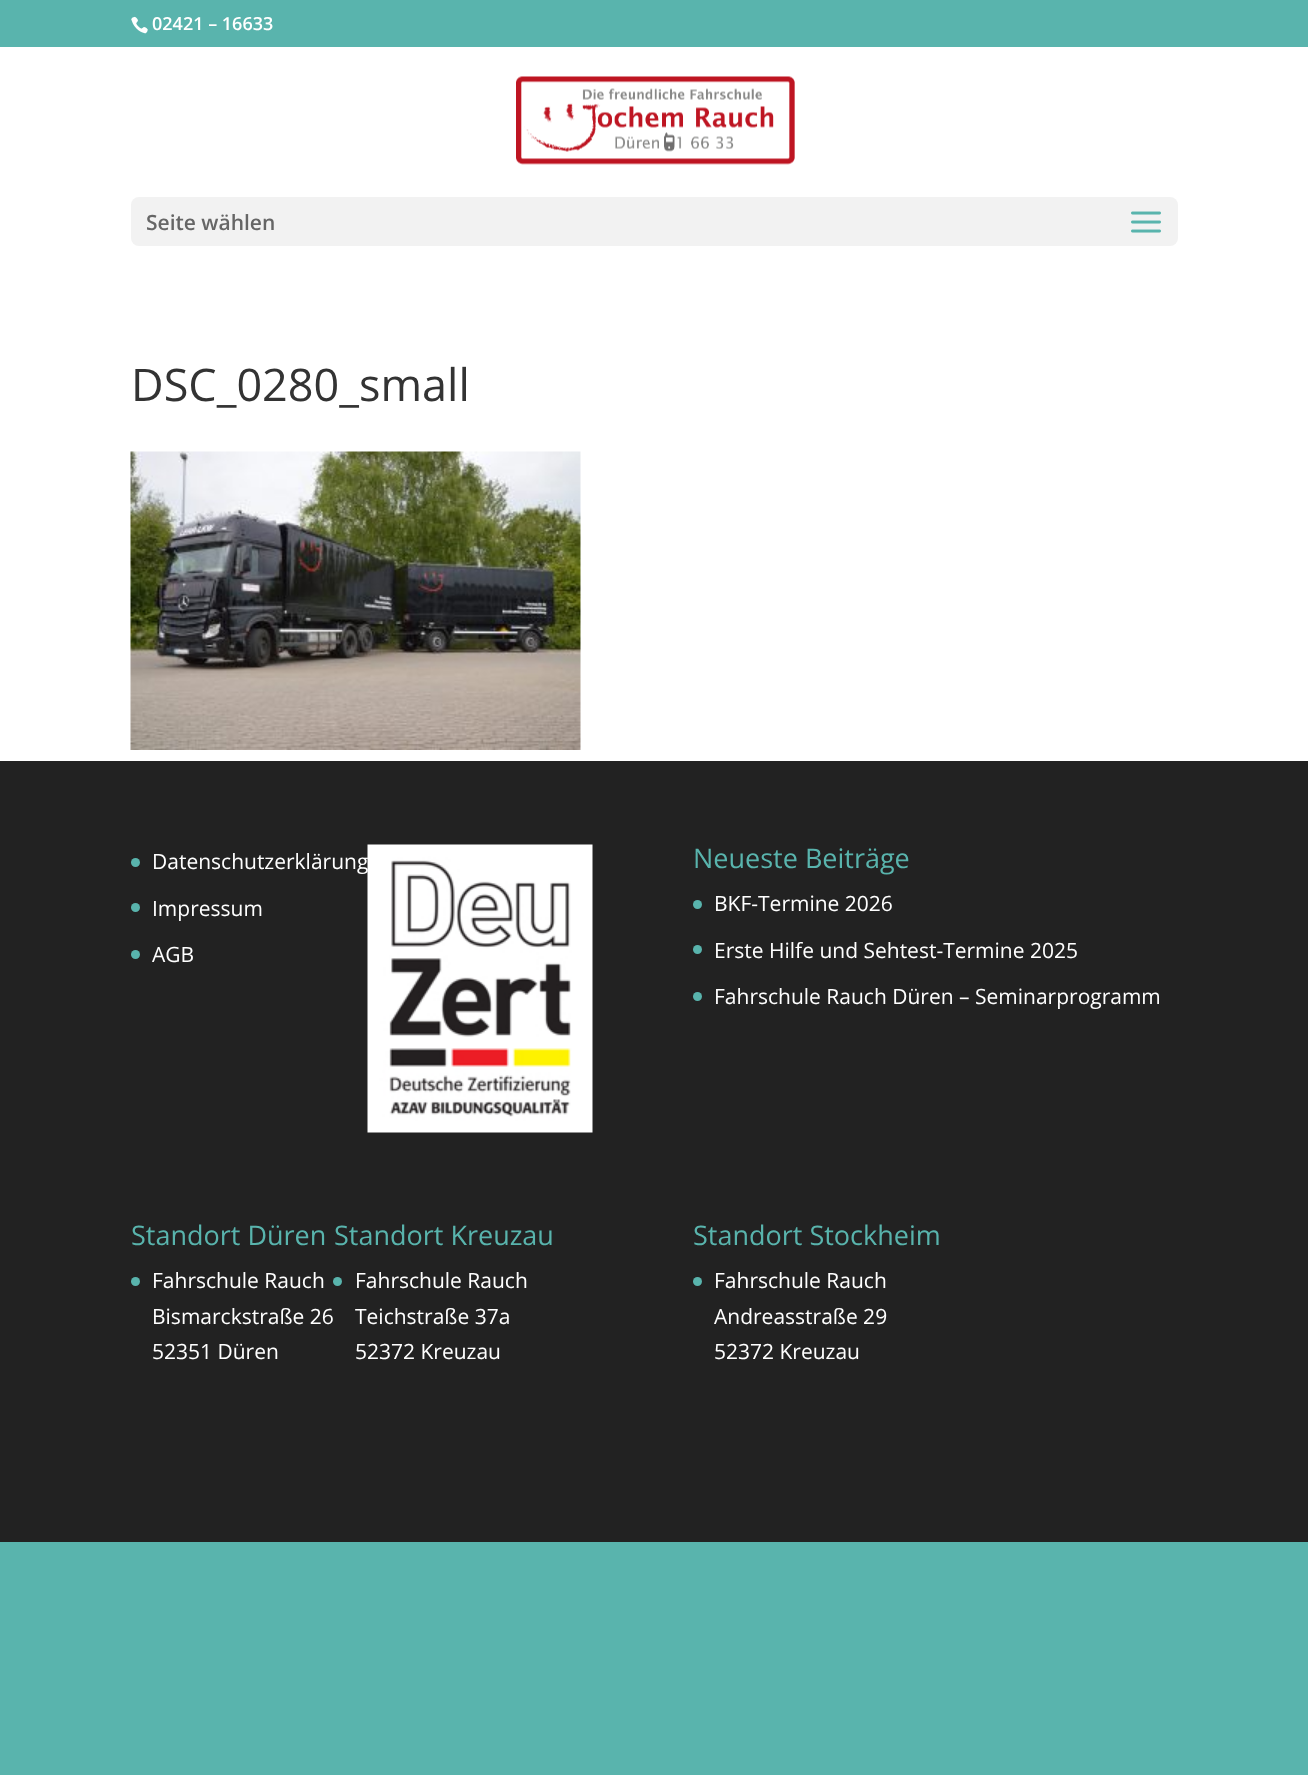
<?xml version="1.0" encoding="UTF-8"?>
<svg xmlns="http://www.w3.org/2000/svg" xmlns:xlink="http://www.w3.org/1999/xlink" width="1308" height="1775">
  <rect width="100%" height="100%" fill="#59b4ad" />
  <image x="131" y="16" width="17" height="18" xlink:href="image1.png" />
  <rect y="47" width="1308" height="714" fill="#ffffff" />
  <image x="516" y="76" width="279" height="89" xlink:href="image2.png" />
  <rect x="131" y="197" width="1047" height="49" rx="8" fill="#f2f2f2" />
  <image x="1131" y="211" width="30" height="22" xlink:href="image3.png" />
  <image x="130" y="451" width="451" height="299" xlink:href="image4.png" />
  <rect y="761" width="1308" height="781" fill="#222222" />
  <circle cx="135.5" cy="862.5" r="4.5" fill="#59b4ad" />
  <circle cx="135.5" cy="907.5" r="4.5" fill="#59b4ad" />
  <circle cx="135.5" cy="954.5" r="4.5" fill="#59b4ad" />
  <image x="367" y="844" width="226" height="289" xlink:href="image5.png" />
  <circle cx="697.5" cy="904.5" r="4.5" fill="#59b4ad" />
  <circle cx="697.5" cy="949.5" r="4.5" fill="#59b4ad" />
  <circle cx="697.5" cy="996.5" r="4.5" fill="#59b4ad" />
  <circle cx="135.5" cy="1281.5" r="4.5" fill="#59b4ad" />
  <circle cx="337.5" cy="1281.5" r="4.5" fill="#59b4ad" />
  <circle cx="697.5" cy="1281.5" r="4.5" fill="#59b4ad" />
  <text x="152" y="30" style="font-family: Open Sans; font-size: 18px; font-weight: 600; fill: #ffffff">02421 – 16633</text>
  <text x="146" y="230" style="font-family: Open Sans; font-size: 21px; font-weight: 600; fill: #666666">Seite wählen</text>
  <text x="131" y="401" style="font-family: Open Sans; font-size: 45px; fill: #333333">DSC_0280_small</text>
  <text x="152" y="869" style="font-family: Open Sans; font-size: 21px; fill: #ffffff">Datenschutzerklärung</text>
  <text x="152" y="916" style="font-family: Open Sans; font-size: 21px; fill: #ffffff">Impressum</text>
  <text x="152" y="962" style="font-family: Open Sans; font-size: 21px; fill: #ffffff">AGB</text>
  <text x="693" y="868" style="font-family: Open Sans; font-size: 27px; fill: #59b4ad">Neueste Beiträge</text>
  <text x="714" y="911" style="font-family: Open Sans; font-size: 21px; fill: #ffffff">BKF-Termine 2026</text>
  <text x="714" y="958" style="font-family: Open Sans; font-size: 21px; fill: #ffffff">Erste Hilfe und Sehtest-Termine 2025</text>
  <text x="714" y="1004" style="font-family: Open Sans; font-size: 21px; fill: #ffffff">Fahrschule Rauch Düren – Seminarprogramm</text>
  <text x="131" y="1245" style="font-family: Open Sans; font-size: 27px; fill: #59b4ad">Standort Düren</text>
  <text x="152" y="1288" style="font-family: Open Sans; font-size: 21px; fill: #ffffff">Fahrschule Rauch</text>
  <text x="152" y="1324" style="font-family: Open Sans; font-size: 21px; fill: #ffffff">Bismarckstraße 26</text>
  <text x="152" y="1359" style="font-family: Open Sans; font-size: 21px; fill: #ffffff">52351 Düren</text>
  <text x="334" y="1245" style="font-family: Open Sans; font-size: 27px; fill: #59b4ad">Standort Kreuzau</text>
  <text x="355" y="1288" style="font-family: Open Sans; font-size: 21px; fill: #ffffff">Fahrschule Rauch</text>
  <text x="355" y="1324" style="font-family: Open Sans; font-size: 21px; fill: #ffffff">Teichstraße 37a</text>
  <text x="355" y="1359" style="font-family: Open Sans; font-size: 21px; fill: #ffffff">52372 Kreuzau</text>
  <text x="693" y="1245" style="font-family: Open Sans; font-size: 27px; fill: #59b4ad">Standort Stockheim</text>
  <text x="714" y="1288" style="font-family: Open Sans; font-size: 21px; fill: #ffffff">Fahrschule Rauch</text>
  <text x="714" y="1324" style="font-family: Open Sans; font-size: 21px; fill: #ffffff">Andreasstraße 29</text>
  <text x="714" y="1359" style="font-family: Open Sans; font-size: 21px; fill: #ffffff">52372 Kreuzau</text>
</svg>
